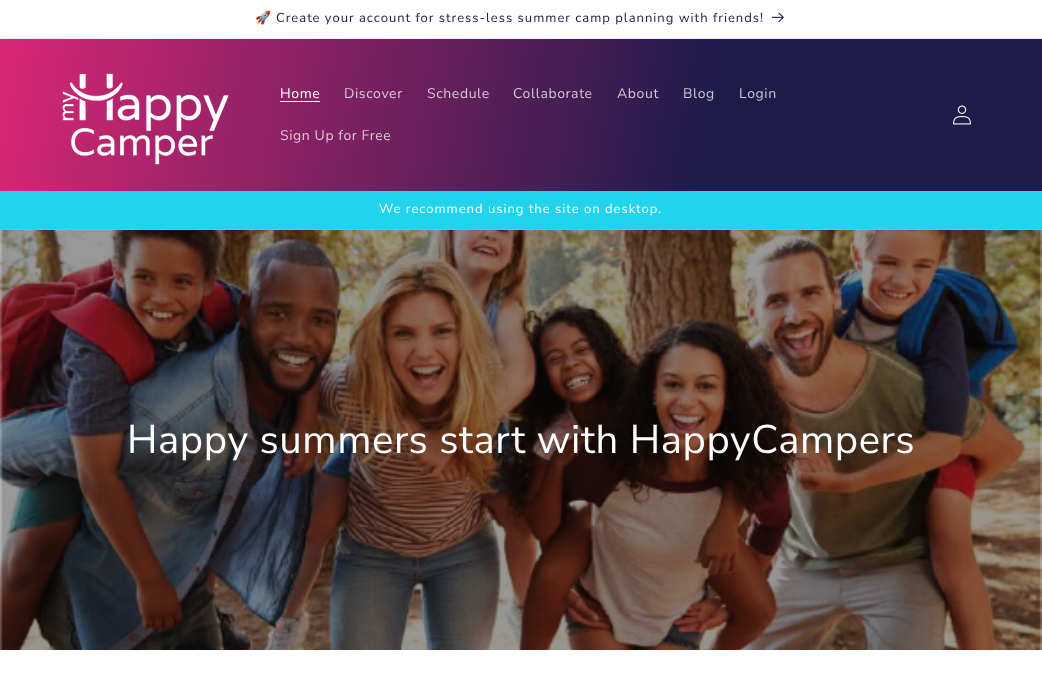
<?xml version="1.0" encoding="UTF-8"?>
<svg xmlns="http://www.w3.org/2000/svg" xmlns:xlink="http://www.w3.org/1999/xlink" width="1042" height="686">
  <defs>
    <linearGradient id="g1" gradientUnits="userSpaceOnUse" x1="-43" y1="244" x2="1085" y2="442"><stop offset="0" stop-color="#db2777" /><stop offset="0.63" stop-color="#1e1b4b" /></linearGradient>
  </defs>
  <rect width="100%" height="100%" fill="#ffffff" />
  <rect y="38" width="1042" height="1" fill="#ededf1" />
  <image x="772" y="12" width="12" height="11" xlink:href="image1.png" />
  <rect y="39" width="1042" height="152" fill="url(#g1)" />
  <image x="62" y="73" width="167" height="92" xlink:href="image2.png" />
  <rect x="280" y="101" width="40" height="1" fill="#ffffff" />
  <image x="953" y="105" width="18" height="20" xlink:href="image3.png" />
  <rect y="191" width="1042" height="38" fill="#22d3ee" />
  <rect y="229" width="1042" height="1" fill="#34d7ef" />
  <image x="0" y="230" width="1042" height="420" xlink:href="image4.png" />
  <text x="255" y="22" style="font-family: Noto Color Emoji; font-size: 13px; letter-spacing: 1px; fill: #1e1b4b">🚀</text>
  <text x="276" y="22" style="font-family: Nunito Sans; font-size: 13px; letter-spacing: 1px; fill: #1e1b4b">Create your account for stress-less summer camp planning with friends!</text>
  <text x="280" y="98" style="font-family: Nunito Sans; font-size: 14px; letter-spacing: 0.6px; fill: #ffffff">Home</text>
  <text x="344" y="98" style="font-family: Nunito Sans; font-size: 14px; letter-spacing: 0.6px; fill: #ddc7d7">Discover</text>
  <text x="427" y="98" style="font-family: Nunito Sans; font-size: 14px; letter-spacing: 0.6px; fill: #d7c7d6">Schedule</text>
  <text x="513" y="98" style="font-family: Nunito Sans; font-size: 14px; letter-spacing: 0.6px; fill: #d1c7d4">Collaborate</text>
  <text x="617" y="98" style="font-family: Nunito Sans; font-size: 14px; letter-spacing: 0.6px; fill: #d1c7d4">About</text>
  <text x="683" y="98" style="font-family: Nunito Sans; font-size: 14px; letter-spacing: 0.6px; fill: #c8c6d2">Blog</text>
  <text x="739" y="98" style="font-family: Nunito Sans; font-size: 14px; letter-spacing: 0.6px; fill: #c8c6d2">Login</text>
  <text x="280" y="140" style="font-family: Nunito Sans; font-size: 14px; letter-spacing: 0.6px; fill: #ddc7d7">Sign Up for Free</text>
  <text x="379" y="213" style="font-family: Nunito Sans; font-size: 13px; letter-spacing: 1px; fill: #ffffff">We recommend using the site on desktop.</text>
  <text x="127" y="453" style="font-family: Nunito Sans; font-size: 40px; letter-spacing: 0.6px; fill: #ffffff">Happy summers start with HappyCampers</text>
</svg>
